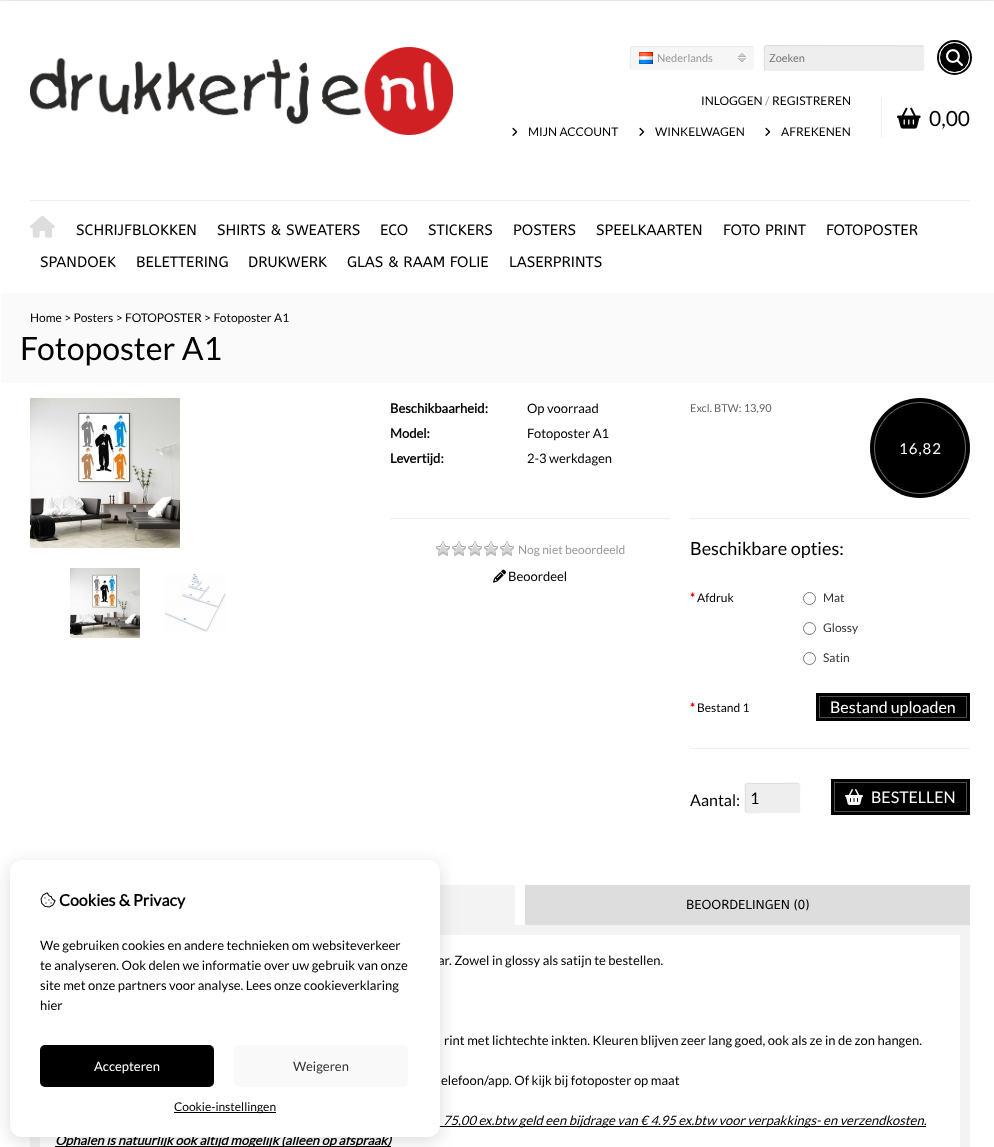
<?xml version="1.0" encoding="UTF-8"?>
<svg xmlns="http://www.w3.org/2000/svg" xmlns:xlink="http://www.w3.org/1999/xlink" width="994" height="1147">
  <rect width="100%" height="100%" fill="#ffffff" />
  <image x="0" y="0" width="994" height="1" xlink:href="image1.png" />
  <rect y="1" width="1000" height="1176" fill="#000000" fill-opacity="0.1" filter="blur(10px)" />
  <rect y="1" width="994" height="1146" fill="#ffffff" />
  <image x="30" y="47" width="423" height="88" xlink:href="image2.png" />
  <rect x="630" y="46" width="124" height="24" rx="3" fill="#f6f6f6" />
  <image x="738" y="53" width="8" height="9" xlink:href="image3.png" />
  <path d="M 753 47 c 1.5 2 0.5 9 0.5 11 v 6 c 0 2 0.5 5.5 -2.5 5.5 h -118 l -2 -0.5" fill="none" stroke="#f6f6f6" />
  <path d="M 631 69 c -1.5 -2 -0.5 -9 -0.5 -11 v -6 c 0 -2 -0.5 -5.5 2.5 -5.5 h 118 l 2 0.5" fill="none" stroke="#e9e9e9" />
  <image x="639" y="52" width="14" height="12" xlink:href="image4.png" />
  <rect x="764" y="45" width="160" height="26" rx="2" fill="#eeeeee" />
  <path d="M 923 46 c 1.5 1 0.5 13.5 0.5 15.5 c 0 1 1.5 9 -1.5 9 l -157 -0.5" fill="none" stroke="#eeeeee" />
  <path d="M 765 70 c -1.5 -1 -0.5 -13.5 -0.5 -15.5 c 0 -1 -1.5 -9 1.5 -9 l 157 0.5" fill="none" stroke="#dddddd" />
  <circle cx="954.5" cy="57.5" r="16.5" fill="none" stroke="#000000" stroke-width="2" />
  <circle cx="954.5" cy="57.5" r="15" fill="#000000" stroke="#ffffff" />
  <image x="946" y="49" width="17" height="18" xlink:href="image5.png" />
  <rect x="881" y="98" width="1" height="40" fill="#eeeeee" />
  <image x="897" y="107" width="24" height="22" xlink:href="image6.png" />
  <image x="512" y="127" width="6" height="9" xlink:href="image7.png" />
  <image x="639" y="127" width="6" height="9" xlink:href="image7.png" />
  <image x="765" y="127" width="6" height="9" xlink:href="image7.png" />
  <rect x="30" y="200" width="940" height="1" fill="#eeeeee" />
  <image x="30" y="215" width="25" height="23" xlink:href="image8.png" />
  <rect x="1" y="293" width="993" height="90" fill="#fafafa" />
  <image x="30" y="398" width="150" height="150" xlink:href="image9.png" />
  <image x="70" y="568" width="70" height="70" xlink:href="image10.png" />
  <image x="164" y="573" width="62" height="59" xlink:href="image11.png" />
  <rect x="390" y="518" width="280" height="1" fill="#eeeeee" />
  <image x="436" y="541" width="78" height="15" xlink:href="image12.png" />
  <image x="493" y="569" width="13" height="14" xlink:href="image13.png" />
  <circle cx="920" cy="448" r="50" fill="#000000" />
  <image x="874" y="402" width="92" height="92" xlink:href="image14.png" />
  <rect x="690" y="518" width="280" height="1" fill="#eeeeee" />
  <circle cx="809.5" cy="598.5" r="6" fill="none" stroke="#767676" />
  <circle cx="809.5" cy="628.5" r="6" fill="none" stroke="#767676" />
  <circle cx="809.5" cy="658.5" r="6" fill="none" stroke="#767676" />
  <rect x="816" y="693" width="154" height="28" fill="#000000" />
  <rect x="819.5" y="696.5" width="147" height="21" fill="none" stroke="#4d4d4d" />
  <rect x="690" y="748" width="280" height="1" fill="#eeeeee" />
  <rect x="745" y="783" width="55" height="30" rx="2" fill="#eeeeee" />
  <path d="M 799 784 c 1.5 1.5 0.5 12 0.5 14 c 0 16.5 3.5 14.5 -10 14.5 h -25.5 c -2 0 -16.5 1 -18 -0.5" fill="none" stroke="#eeeeee" />
  <path d="M 746 812 c -1.5 -1.5 -0.5 -12 -0.5 -14 c 0 -16.5 -3.5 -14.5 10 -14.5 h 25.5 c 2 0 16.5 -1 18 0.5" fill="none" stroke="#dddddd" />
  <rect x="831" y="779" width="139" height="36" fill="#000000" />
  <rect x="834.5" y="782.5" width="132" height="29" fill="none" stroke="#4d4d4d" />
  <image x="845" y="789" width="18" height="16" xlink:href="image15.png" />
  <rect x="440" y="885" width="75" height="40" fill="#f3f3f3" />
  <rect x="525" y="885" width="445" height="40" fill="#dddddd" />
  <rect x="35" y="930" width="930" height="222" fill="none" stroke="#f3f3f3" stroke-width="10" />
  <rect x="439" y="1126" width="487" height="1" fill="#000000" />
  <rect x="55" y="1146" width="336" height="1" fill="#000000" />
  <rect x="10" y="864" width="430" height="277" rx="12" fill="#4c4c4c" fill-opacity="0.2" filter="blur(8.5px)" />
  <text x="657" y="62" style="font-family: Lato; font-size: 11px; fill: #999999">Nederlands</text>
  <text x="769" y="62" style="font-family: Lato; font-size: 11px; fill: #757575">Zoeken</text>
  <text x="701" y="105" style="font-family: Lato; font-size: 12px; fill: #000000">INLOGGEN</text>
  <text x="765" y="105" style="font-family: Lato; font-size: 12px; fill: #999999">/</text>
  <text x="772" y="105" style="font-family: Lato; font-size: 12px; fill: #000000">REGISTREREN</text>
  <text x="929" y="126" style="font-family: Lato; font-size: 21px; fill: #000000">0,00</text>
  <text x="528" y="136" style="font-family: Lato; font-size: 12px; fill: #000000">MIJN ACCOUNT</text>
  <text x="655" y="136" style="font-family: Lato; font-size: 12px; fill: #000000">WINKELWAGEN</text>
  <text x="781" y="136" style="font-family: Lato; font-size: 12px; fill: #000000">AFREKENEN</text>
  <text x="76" y="235" style="font-family: ABeeZee; font-size: 15px; fill: #000000">SCHRIJFBLOKKEN</text>
  <text x="217" y="235" style="font-family: ABeeZee; font-size: 15px; fill: #000000">SHIRTS &amp; SWEATERS</text>
  <text x="380" y="235" style="font-family: ABeeZee; font-size: 15px; fill: #000000">ECO</text>
  <text x="428" y="235" style="font-family: ABeeZee; font-size: 15px; fill: #000000">STICKERS</text>
  <text x="513" y="235" style="font-family: ABeeZee; font-size: 15px; fill: #000000">POSTERS</text>
  <text x="596" y="235" style="font-family: ABeeZee; font-size: 15px; fill: #000000">SPEELKAARTEN</text>
  <text x="723" y="235" style="font-family: ABeeZee; font-size: 15px; fill: #000000">FOTO PRINT</text>
  <text x="826" y="235" style="font-family: ABeeZee; font-size: 15px; fill: #000000">FOTOPOSTER</text>
  <text x="40" y="267" style="font-family: ABeeZee; font-size: 15px; fill: #000000">SPANDOEK</text>
  <text x="136" y="267" style="font-family: ABeeZee; font-size: 15px; fill: #000000">BELETTERING</text>
  <text x="248" y="267" style="font-family: ABeeZee; font-size: 15px; fill: #000000">DRUKWERK</text>
  <text x="347" y="267" style="font-family: ABeeZee; font-size: 15px; fill: #000000">GLAS &amp; RAAM FOLIE</text>
  <text x="509" y="267" style="font-family: ABeeZee; font-size: 15px; fill: #000000">LASERPRINTS</text>
  <text x="30" y="322" style="font-family: Lato; font-size: 12px; fill: #000000">Home &gt; Posters &gt; FOTOPOSTER &gt; Fotoposter A1</text>
  <text x="20" y="360" style="font-family: Lato; font-size: 32px; fill: #000000">Fotoposter A1</text>
  <text x="390" y="413" style="font-family: Lato; font-size: 13px; font-weight: bold; fill: #000000">Beschikbaarheid:</text>
  <text x="527" y="413" style="font-family: Lato; font-size: 13px; fill: #000000">Op voorraad</text>
  <text x="390" y="438" style="font-family: Lato; font-size: 13px; font-weight: bold; fill: #000000">Model:</text>
  <text x="527" y="438" style="font-family: Lato; font-size: 13px; fill: #000000">Fotoposter A1</text>
  <text x="390" y="463" style="font-family: Lato; font-size: 13px; font-weight: bold; fill: #000000">Levertijd:</text>
  <text x="527" y="463" style="font-family: Lato; font-size: 13px; fill: #000000">2-3 werkdagen</text>
  <text x="518" y="554" style="font-family: Lato; font-size: 12px; fill: #999999">Nog niet beoordeeld</text>
  <text x="508" y="581" style="font-family: Lato; font-size: 13px; fill: #000000">Beoordeel</text>
  <text x="690" y="412" style="font-family: Lato; font-size: 11px; fill: #666666">Excl. BTW: 13,90</text>
  <text x="899" y="454" style="font-family: Lato; font-size: 15px; letter-spacing: 1px; fill: #ffffff">16,82</text>
  <text x="690" y="555" style="font-family: Lato; font-size: 18px; fill: #000000">Beschikbare opties:</text>
  <text x="690" y="602" style="font-family: Lato; font-size: 12px; font-weight: bold; fill: #ff0000">*</text>
  <text x="697" y="602" style="font-family: Lato; font-size: 12px; fill: #000000">Afdruk</text>
  <text x="823" y="602" style="font-family: Lato; font-size: 12px; fill: #333333">Mat</text>
  <text x="823" y="632" style="font-family: Lato; font-size: 12px; fill: #333333">Glossy</text>
  <text x="823" y="662" style="font-family: Lato; font-size: 12px; fill: #333333">Satin</text>
  <text x="690" y="712" style="font-family: Lato; font-size: 12px; font-weight: bold; fill: #ff0000">*</text>
  <text x="697" y="712" style="font-family: Lato; font-size: 12px; fill: #000000">Bestand 1</text>
  <text x="830" y="713" style="font-family: Lato; font-size: 16px; fill: #ffffff">Bestand uploaden</text>
  <text x="690" y="806" style="font-family: Lato; font-size: 16px; fill: #000000">Aantal:</text>
  <text x="750" y="804" style="font-family: Lato; font-size: 16px; fill: #000000">1</text>
  <text x="871" y="803" style="font-family: Lato; font-size: 16px; fill: #ffffff">BESTELLEN</text>
  <text x="686" y="909" style="font-family: ABeeZee; font-size: 13px; fill: #000000">BEOORDELINGEN (0)</text>
  <text x="438" y="965" style="font-family: Lato; font-size: 13px; fill: #000000">ar. Zowel in glossy als satijn te bestellen.</text>
  <text x="444" y="1045" style="font-family: Lato; font-size: 13px; fill: #000000">rint met lichtechte inkten. Kleuren blijven zeer lang goed, ook als ze in de zon hangen.</text>
  <text x="441" y="1085" style="font-family: Lato; font-size: 13px; fill: #000000">elefoon/app. Of kijk bij fotoposter op maat</text>
  <text x="443" y="1125" style="font-family: Lato; font-size: 13px; font-style: italic; fill: #000000">75,00 ex.btw geld een bijdrage van € 4.95 ex.btw voor verpakkings- en verzendkosten.</text>
  <text x="55" y="1145" style="font-family: Lato; font-size: 13px; font-weight: bold; font-style: italic; fill: #000000">Ophalen is natuurlijk ook altijd mogelijk (alleen op afspraak)</text>
  <rect x="10" y="860" width="430" height="277" rx="12" fill="#ffffff" />
  <image x="40" y="892" width="16" height="16" xlink:href="image16.png" />
  <text x="59" y="906" style="font-family: Lato; font-size: 16px; font-weight: bold; fill: #000000">Cookies &amp; Privacy</text>
  <text x="40" y="950" style="font-family: Lato; font-size: 13px; fill: #000000">We gebruiken cookies en andere technieken om websiteverkeer</text>
  <text x="40" y="970" style="font-family: Lato; font-size: 13px; fill: #000000">te analyseren. Ook delen we informatie over uw gebruik van onze</text>
  <text x="40" y="990" style="font-family: Lato; font-size: 13px; fill: #000000">site met onze partners voor analyse. Lees onze cookieverklaring</text>
  <text x="40" y="1010" style="font-family: Lato; font-size: 13px; fill: #000000">hier</text>
  <rect x="40" y="1045" width="174" height="42" rx="5" fill="#000000" />
  <text x="94" y="1071" style="font-family: Lato; font-size: 13px; fill: #ffffff">Accepteren</text>
  <rect x="234" y="1045" width="174" height="42" rx="5" fill="#f9f9f9" />
  <text x="293" y="1071" style="font-family: Lato; font-size: 13px; fill: #333333">Weigeren</text>
  <rect x="174" y="1112" width="102" height="1" fill="#000000" />
  <text x="174" y="1111" style="font-family: Lato; font-size: 12px; fill: #000000">Cookie-instellingen</text>
</svg>
